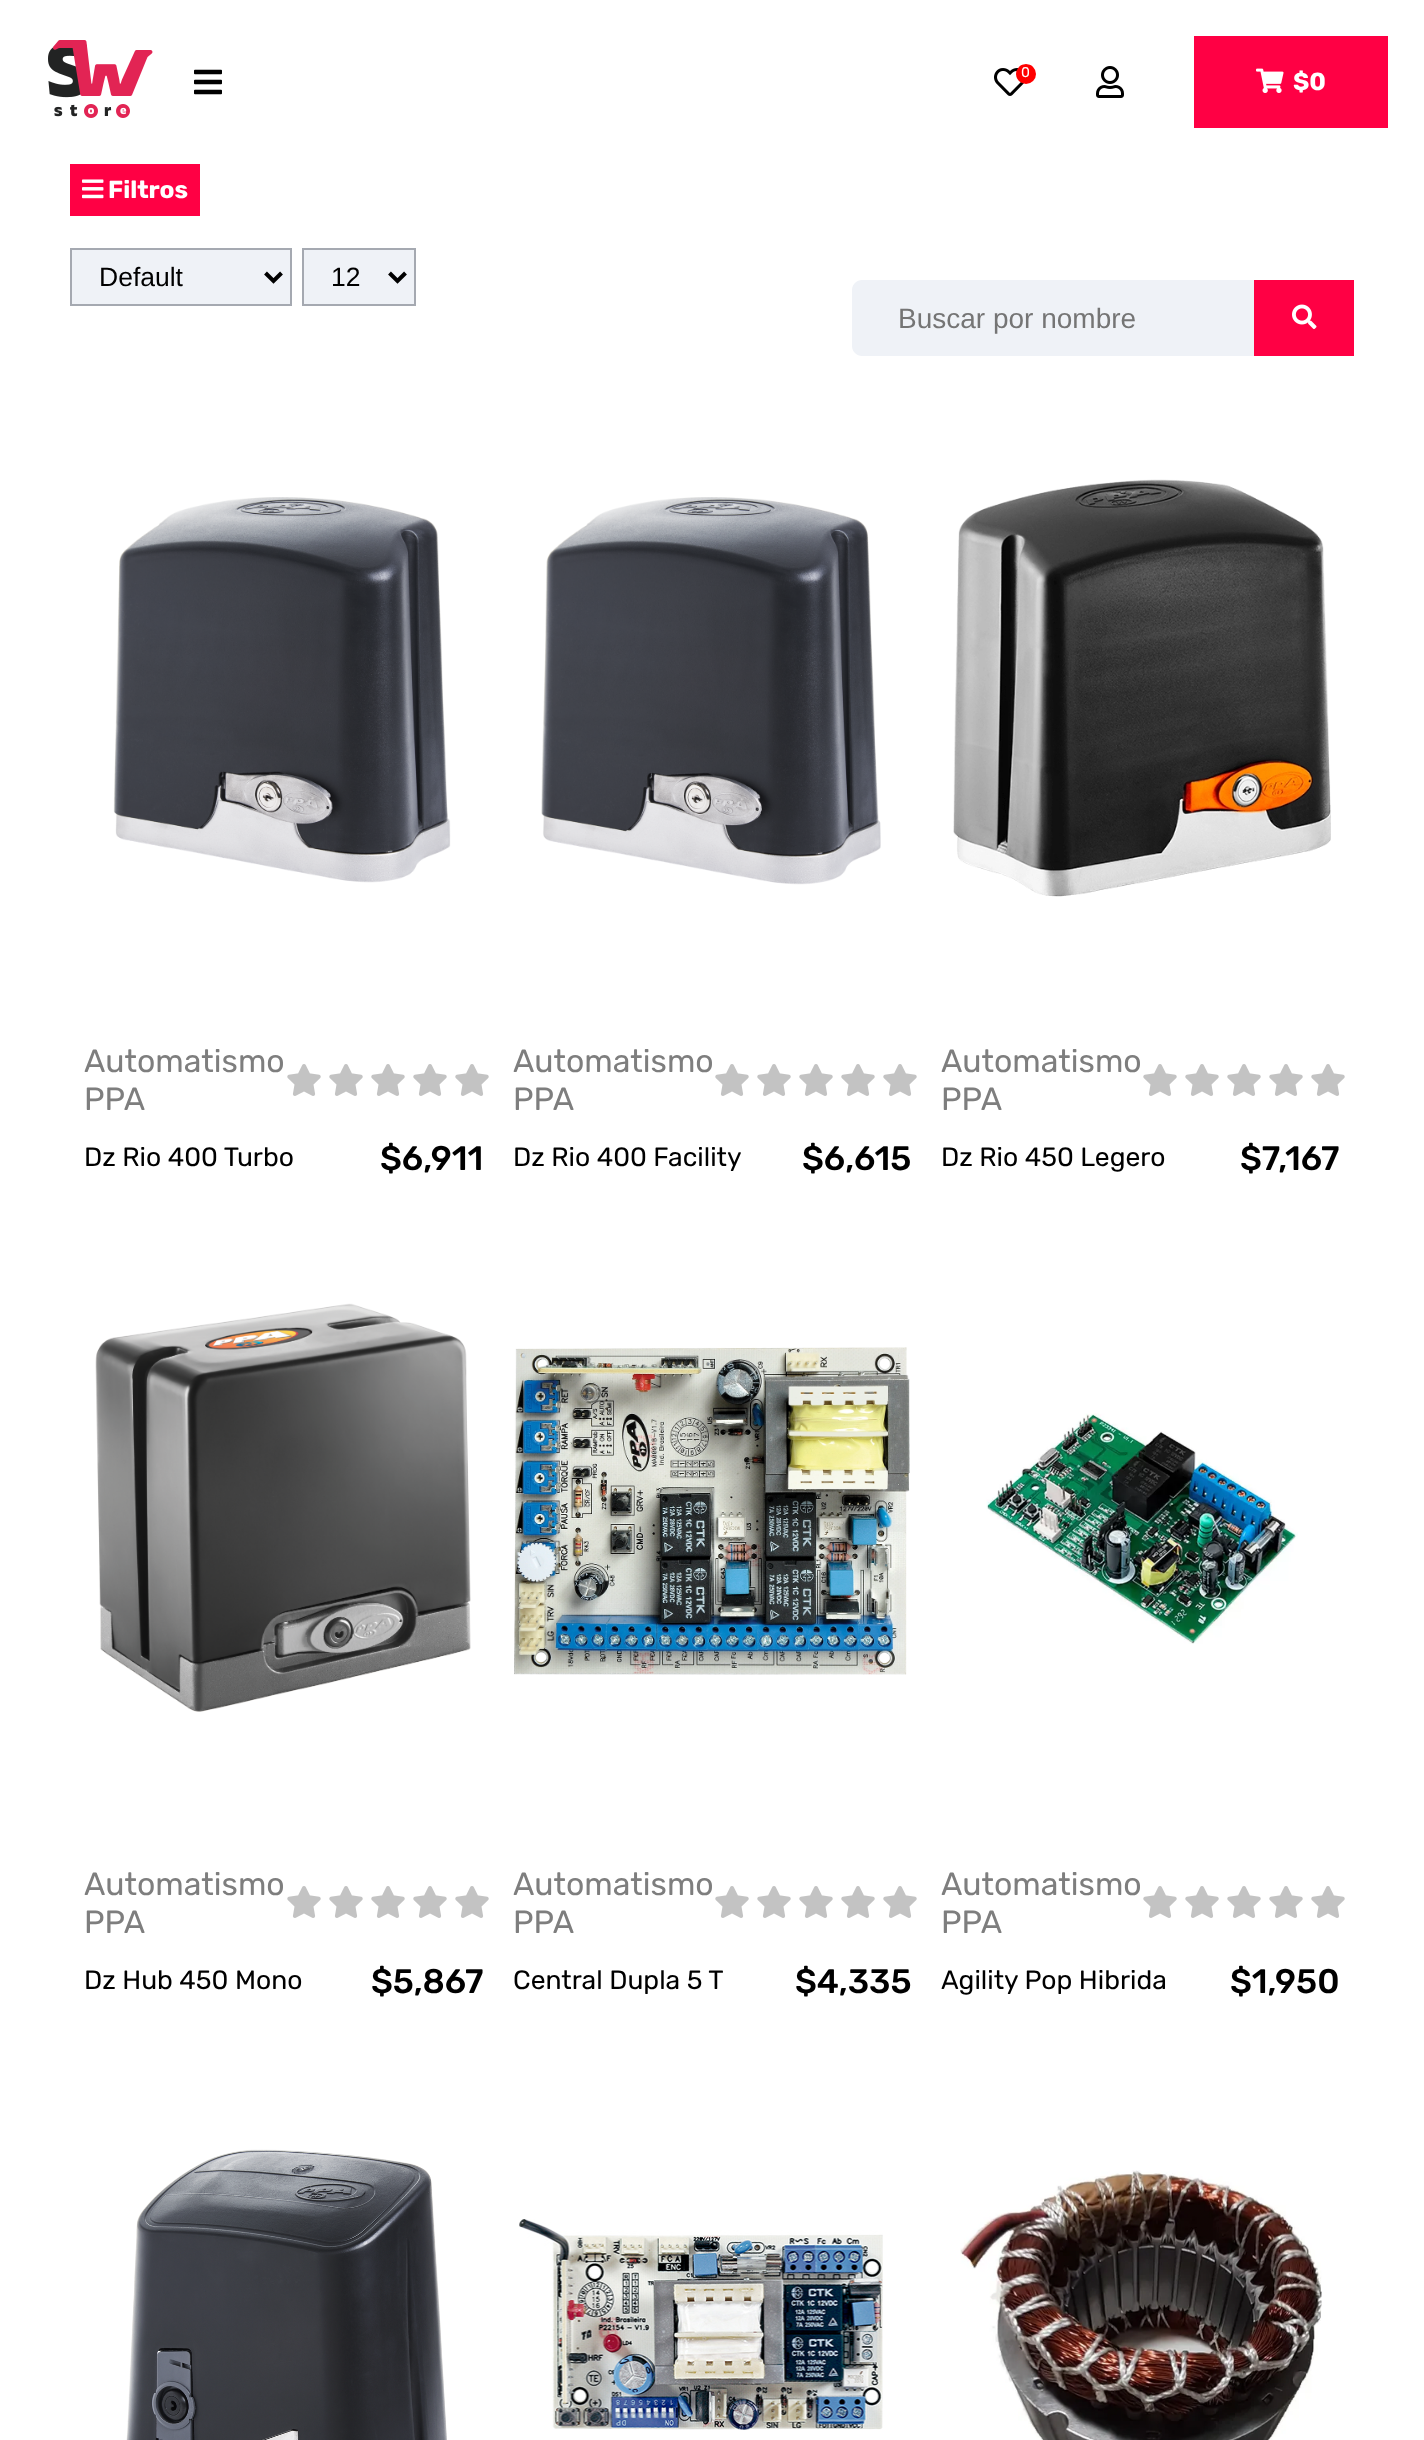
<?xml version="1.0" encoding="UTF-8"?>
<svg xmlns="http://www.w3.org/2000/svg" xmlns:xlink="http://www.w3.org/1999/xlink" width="1424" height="2440">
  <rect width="100%" height="100%" fill="#ffffff" />
  <image x="48" y="40" width="105" height="78" xlink:href="image1.png" />
  <image x="194" y="69" width="28" height="26" xlink:href="image2.png" />
  <image x="994" y="68" width="30" height="28" xlink:href="image3.png" />
  <circle cx="1026" cy="74" r="10" fill="#ff0000" />
  <image x="1096" y="66" width="28" height="32" xlink:href="image4.png" />
  <rect x="1195" y="37" width="192" height="90" fill="none" stroke="#ff0044" stroke-width="2" />
  <rect x="1196" y="38" width="190" height="88" fill="#ff0044" />
  <image x="1256" y="68" width="28" height="25" xlink:href="image5.png" />
  <rect x="71" y="165" width="128" height="50" fill="none" stroke="#ff0044" stroke-width="2" />
  <rect x="72" y="166" width="126" height="48" fill="#ff0044" />
  <image x="82" y="179" width="22" height="20" xlink:href="image6.png" />
  <rect x="71" y="249" width="220" height="56" fill="#eff2f7" stroke="#a5a9b1" stroke-width="2" />
  <path d="M 265.5 273 l 8 8 l 8 -8" fill="none" stroke="#000000" stroke-width="4" />
  <rect x="303" y="249" width="112" height="56" fill="#eff2f7" stroke="#a5a9b1" stroke-width="2" />
  <path d="M 389.5 273 l 8 8 l 8 -8" fill="none" stroke="#000000" stroke-width="4" />
  <path d="M 862 280 h 392 v 76 h -392 c -5.5 0 -10 -4.5 -10 -10 v -56 c 0 -5.5 4.5 -10 10 -10 z" fill="#eff2f7" />
  <rect x="1255" y="281" width="98" height="74" fill="none" stroke="#ff0044" stroke-width="2" />
  <rect x="1256" y="282" width="96" height="72" fill="#ff0044" />
  <image x="1292" y="304" width="25" height="25" xlink:href="image7.png" />
  <image x="113" y="497" width="338" height="386" xlink:href="image8.png" />
  <image x="287" y="1064" width="34" height="32" xlink:href="image9.png" />
  <image x="329" y="1064" width="34" height="32" xlink:href="image9.png" />
  <image x="371" y="1064" width="34" height="32" xlink:href="image9.png" />
  <image x="413" y="1064" width="34" height="32" xlink:href="image9.png" />
  <image x="455" y="1064" width="34" height="32" xlink:href="image9.png" />
  <image x="541" y="497" width="340" height="388" xlink:href="image10.png" />
  <image x="715" y="1064" width="34" height="32" xlink:href="image9.png" />
  <image x="757" y="1064" width="34" height="32" xlink:href="image9.png" />
  <image x="799" y="1064" width="34" height="32" xlink:href="image9.png" />
  <image x="841" y="1064" width="34" height="32" xlink:href="image9.png" />
  <image x="883" y="1064" width="34" height="32" xlink:href="image9.png" />
  <image x="953" y="479" width="378" height="418" xlink:href="image11.png" />
  <image x="1143" y="1064" width="34" height="32" xlink:href="image9.png" />
  <image x="1185" y="1064" width="34" height="32" xlink:href="image9.png" />
  <image x="1227" y="1064" width="34" height="32" xlink:href="image9.png" />
  <image x="1269" y="1064" width="34" height="32" xlink:href="image9.png" />
  <image x="1311" y="1064" width="34" height="32" xlink:href="image9.png" />
  <image x="95" y="1303" width="376" height="409" xlink:href="image12.png" />
  <image x="287" y="1886" width="34" height="32" xlink:href="image9.png" />
  <image x="329" y="1886" width="34" height="32" xlink:href="image9.png" />
  <image x="371" y="1886" width="34" height="32" xlink:href="image9.png" />
  <image x="413" y="1886" width="34" height="32" xlink:href="image9.png" />
  <image x="455" y="1886" width="34" height="32" xlink:href="image9.png" />
  <image x="514" y="1347" width="396" height="328" xlink:href="image13.png" />
  <image x="715" y="1886" width="34" height="32" xlink:href="image9.png" />
  <image x="757" y="1886" width="34" height="32" xlink:href="image9.png" />
  <image x="799" y="1886" width="34" height="32" xlink:href="image9.png" />
  <image x="841" y="1886" width="34" height="32" xlink:href="image9.png" />
  <image x="883" y="1886" width="34" height="32" xlink:href="image9.png" />
  <image x="986" y="1413" width="312" height="231" xlink:href="image14.png" />
  <image x="1143" y="1886" width="34" height="32" xlink:href="image9.png" />
  <image x="1185" y="1886" width="34" height="32" xlink:href="image9.png" />
  <image x="1227" y="1886" width="34" height="32" xlink:href="image9.png" />
  <image x="1269" y="1886" width="34" height="32" xlink:href="image9.png" />
  <image x="1311" y="1886" width="34" height="32" xlink:href="image9.png" />
  <image x="126" y="2149" width="321" height="291" xlink:href="image15.png" />
  <image x="519" y="2219" width="364" height="211" xlink:href="image16.png" />
  <image x="960" y="2170" width="362" height="270" xlink:href="image17.png" />
  <text x="1021" y="77" style="font-family: Rubik; font-size: 14px; fill: #ffffff">0</text>
  <text x="1293" y="90" style="font-family: Rubik; font-size: 24.5px; font-weight: bold; fill: #ffffff">$0</text>
  <text x="108" y="198" style="font-family: Rubik; font-size: 24.5px; font-weight: bold; fill: #ffffff">Filtros</text>
  <text x="99" y="286" style="font-family: Liberation Sans; font-size: 26.5px; fill: #000000">Default</text>
  <text x="331" y="286" style="font-family: Liberation Sans; font-size: 26.5px; fill: #000000">12</text>
  <text x="898" y="328" style="font-family: Liberation Sans; font-size: 28px; fill: #757575">Buscar por nombre</text>
  <text x="84" y="1072" style="font-family: Rubik; font-size: 32px; fill: #7e7e7e">Automatismo</text>
  <text x="84" y="1110" style="font-family: Rubik; font-size: 32px; fill: #7e7e7e">PPA</text>
  <text x="84" y="1166" style="font-family: Rubik; font-size: 26.5px; fill: #000000">Dz Rio 400 Turbo</text>
  <text x="380" y="1170" style="font-family: Rubik; font-size: 34px; font-weight: 500; fill: #000000">$6,911</text>
  <text x="513" y="1072" style="font-family: Rubik; font-size: 32px; fill: #7e7e7e">Automatismo</text>
  <text x="513" y="1110" style="font-family: Rubik; font-size: 32px; fill: #7e7e7e">PPA</text>
  <text x="513" y="1166" style="font-family: Rubik; font-size: 26.5px; fill: #000000">Dz Rio 400 Facility</text>
  <text x="802" y="1170" style="font-family: Rubik; font-size: 34px; font-weight: 500; fill: #000000">$6,615</text>
  <text x="941" y="1072" style="font-family: Rubik; font-size: 32px; fill: #7e7e7e">Automatismo</text>
  <text x="941" y="1110" style="font-family: Rubik; font-size: 32px; fill: #7e7e7e">PPA</text>
  <text x="941" y="1166" style="font-family: Rubik; font-size: 26.5px; fill: #000000">Dz Rio 450 Legero</text>
  <text x="1240" y="1170" style="font-family: Rubik; font-size: 34px; font-weight: 500; fill: #000000">$7,167</text>
  <text x="84" y="1895" style="font-family: Rubik; font-size: 32px; fill: #7e7e7e">Automatismo</text>
  <text x="84" y="1933" style="font-family: Rubik; font-size: 32px; fill: #7e7e7e">PPA</text>
  <text x="84" y="1989" style="font-family: Rubik; font-size: 26.5px; fill: #000000">Dz Hub 450 Mono</text>
  <text x="371" y="1993" style="font-family: Rubik; font-size: 34px; font-weight: 500; fill: #000000">$5,867</text>
  <text x="513" y="1895" style="font-family: Rubik; font-size: 32px; fill: #7e7e7e">Automatismo</text>
  <text x="513" y="1933" style="font-family: Rubik; font-size: 32px; fill: #7e7e7e">PPA</text>
  <text x="513" y="1989" style="font-family: Rubik; font-size: 26.5px; fill: #000000">Central Dupla 5 T</text>
  <text x="795" y="1993" style="font-family: Rubik; font-size: 34px; font-weight: 500; fill: #000000">$4,335</text>
  <text x="941" y="1895" style="font-family: Rubik; font-size: 32px; fill: #7e7e7e">Automatismo</text>
  <text x="941" y="1933" style="font-family: Rubik; font-size: 32px; fill: #7e7e7e">PPA</text>
  <text x="941" y="1989" style="font-family: Rubik; font-size: 26.5px; fill: #000000">Agility Pop Hibrida</text>
  <text x="1230" y="1993" style="font-family: Rubik; font-size: 34px; font-weight: 500; fill: #000000">$1,950</text>
</svg>
